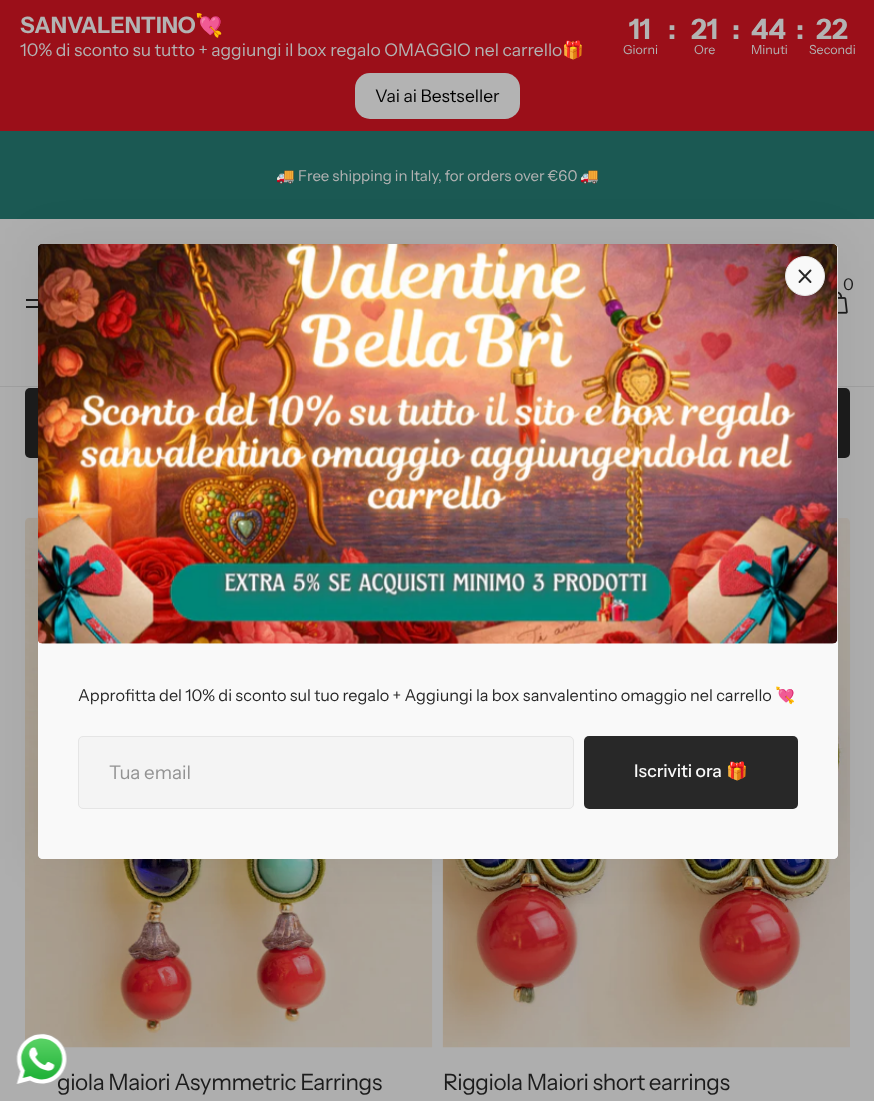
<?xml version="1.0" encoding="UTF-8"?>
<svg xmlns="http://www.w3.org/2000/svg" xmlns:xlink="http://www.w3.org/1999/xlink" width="874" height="1101">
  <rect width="100%" height="100%" fill="#aeaeae" />
  <rect width="874" height="131" fill="#9b0f19" />
  <rect x="355" y="73" width="165" height="46" rx="15" fill="#b3b3b3" />
  <rect y="131" width="874" height="88" fill="#1b5953" />
  <image x="838" y="291" width="10" height="23" xlink:href="image1.png" />
  <rect x="26" y="299" width="12" height="2" fill="#1c1c1c" />
  <rect x="26" y="306" width="18" height="2" fill="#1c1c1c" />
  <rect y="386" width="874" height="1" fill="#a0a0a0" />
  <rect x="25" y="388" width="825" height="70" rx="5" fill="#1c1c1c" />
  <image x="25" y="517" width="408" height="531" xlink:href="image4.png" />
  <image x="442" y="518" width="408" height="530" xlink:href="image5.png" />
  <rect x="38" y="244" width="800" height="615" rx="5" fill="#000000" fill-opacity="0.07" filter="blur(25px)" />
  <rect x="38" y="244" width="800" height="615" rx="5" fill="#f9f9f9" />
  <image x="38" y="244" width="800" height="400" xlink:href="image2.png" />
  <path d="M 38 644 h 800 v 210 c 0 3 -2 5 -5 5 h -790 c -3 0 -5 -2 -5 -5 z" fill="#f9f9f9" />
  <circle cx="805" cy="276" r="19.5" fill="#f9f9f9" stroke="#e5e5e5" />
  <path d="M 810.5 270.5 l -11 11.5 m 11 0 l -11 -11.5" fill="none" stroke="#282828" stroke-width="1.9" stroke-linecap="round" stroke-linejoin="round" />
  <rect x="78.5" y="736.5" width="495" height="72" rx="4.5" fill="#f4f4f4" stroke="#e5e5e5" />
  <rect x="584" y="736" width="214" height="73" rx="5" fill="#282828" />
  <text x="20" y="33" style="font-family: Instrument Sans; font-size: 22.5px; font-weight: bold; fill: #b3b3b3">SANVALENTINO</text>
  <text x="195" y="33" style="font-family: Noto Color Emoji; font-size: 22.5px; font-weight: bold; fill: #b3b3b3">💘</text>
  <text x="20" y="56" style="font-family: Instrument Sans; font-size: 17.5px; fill: #b3b3b3">10% di sconto su tutto + aggiungi il box regalo OMAGGIO nel carrello</text>
  <text x="562" y="56" style="font-family: Noto Color Emoji; font-size: 17.5px; fill: #b3b3b3">🎁</text>
  <text x="629" y="39" style="font-family: Instrument Sans; font-size: 28px; font-weight: bold; fill: #b3b3b3">11</text>
  <text x="668" y="39" style="font-family: Instrument Sans; font-size: 28px; font-weight: bold; fill: #b3b3b3">:</text>
  <text x="691" y="39" style="font-family: Instrument Sans; font-size: 28px; font-weight: bold; fill: #b3b3b3">21</text>
  <text x="732" y="39" style="font-family: Instrument Sans; font-size: 28px; font-weight: bold; fill: #b3b3b3">:</text>
  <text x="751" y="39" style="font-family: Instrument Sans; font-size: 28px; font-weight: bold; fill: #b3b3b3">44</text>
  <text x="796" y="39" style="font-family: Instrument Sans; font-size: 28px; font-weight: bold; fill: #b3b3b3">:</text>
  <text x="816" y="39" style="font-family: Instrument Sans; font-size: 28px; font-weight: bold; fill: #b3b3b3">22</text>
  <text x="623" y="54" style="font-family: Instrument Sans; font-size: 12.5px; fill: #b3b3b3">Giorni</text>
  <text x="694" y="54" style="font-family: Instrument Sans; font-size: 12.5px; fill: #b3b3b3">Ore</text>
  <text x="751" y="54" style="font-family: Instrument Sans; font-size: 12.5px; fill: #b3b3b3">Minuti</text>
  <text x="809" y="54" style="font-family: Instrument Sans; font-size: 12.5px; fill: #b3b3b3">Secondi</text>
  <text x="375" y="102" style="font-family: Instrument Sans; font-size: 17.5px; fill: #000000">Vai ai Bestseller</text>
  <text x="276" y="181" style="font-family: Noto Color Emoji; font-size: 15px; fill: #b3b3b3">🚚</text>
  <text x="298" y="181" style="font-family: Instrument Sans; font-size: 15px; fill: #b3b3b3">Free shipping in Italy, for orders over €60</text>
  <text x="580" y="181" style="font-family: Noto Color Emoji; font-size: 15px; fill: #b3b3b3">🚚</text>
  <text x="843" y="290" style="font-family: Instrument Sans; font-size: 16.25px; fill: #1c1c1c">0</text>
  <text x="78" y="701" style="font-family: Instrument Sans; font-size: 16.25px; fill: #282828">Approfitta del 10% di sconto sul tuo regalo + Aggiungi la box sanvalentino omaggio nel carrello</text>
  <text x="775" y="701" style="font-family: Noto Color Emoji; font-size: 16.25px; fill: #282828">💘</text>
  <text x="109" y="779" style="font-family: Instrument Sans; font-size: 18.75px; fill: #939393">Tua email</text>
  <text x="634" y="777" style="font-family: Instrument Sans; font-size: 17.5px; font-weight: 500; fill: #f9f9f9">Iscriviti ora</text>
  <text x="726" y="777" style="font-family: Noto Color Emoji; font-size: 17.5px; fill: #f9f9f9">🎁</text>
  <text x="57" y="1090" style="font-family: Instrument Sans; font-size: 22.5px; letter-spacing: -0.45px; fill: #1c1c1c">giola Maiori Asymmetric Earrings</text>
  <image x="16" y="1033" width="51" height="53" xlink:href="image3.png" />
  <text x="443" y="1090" style="font-family: Instrument Sans; font-size: 22.5px; letter-spacing: -0.45px; fill: #1c1c1c">Riggiola Maiori short earrings</text>
</svg>
